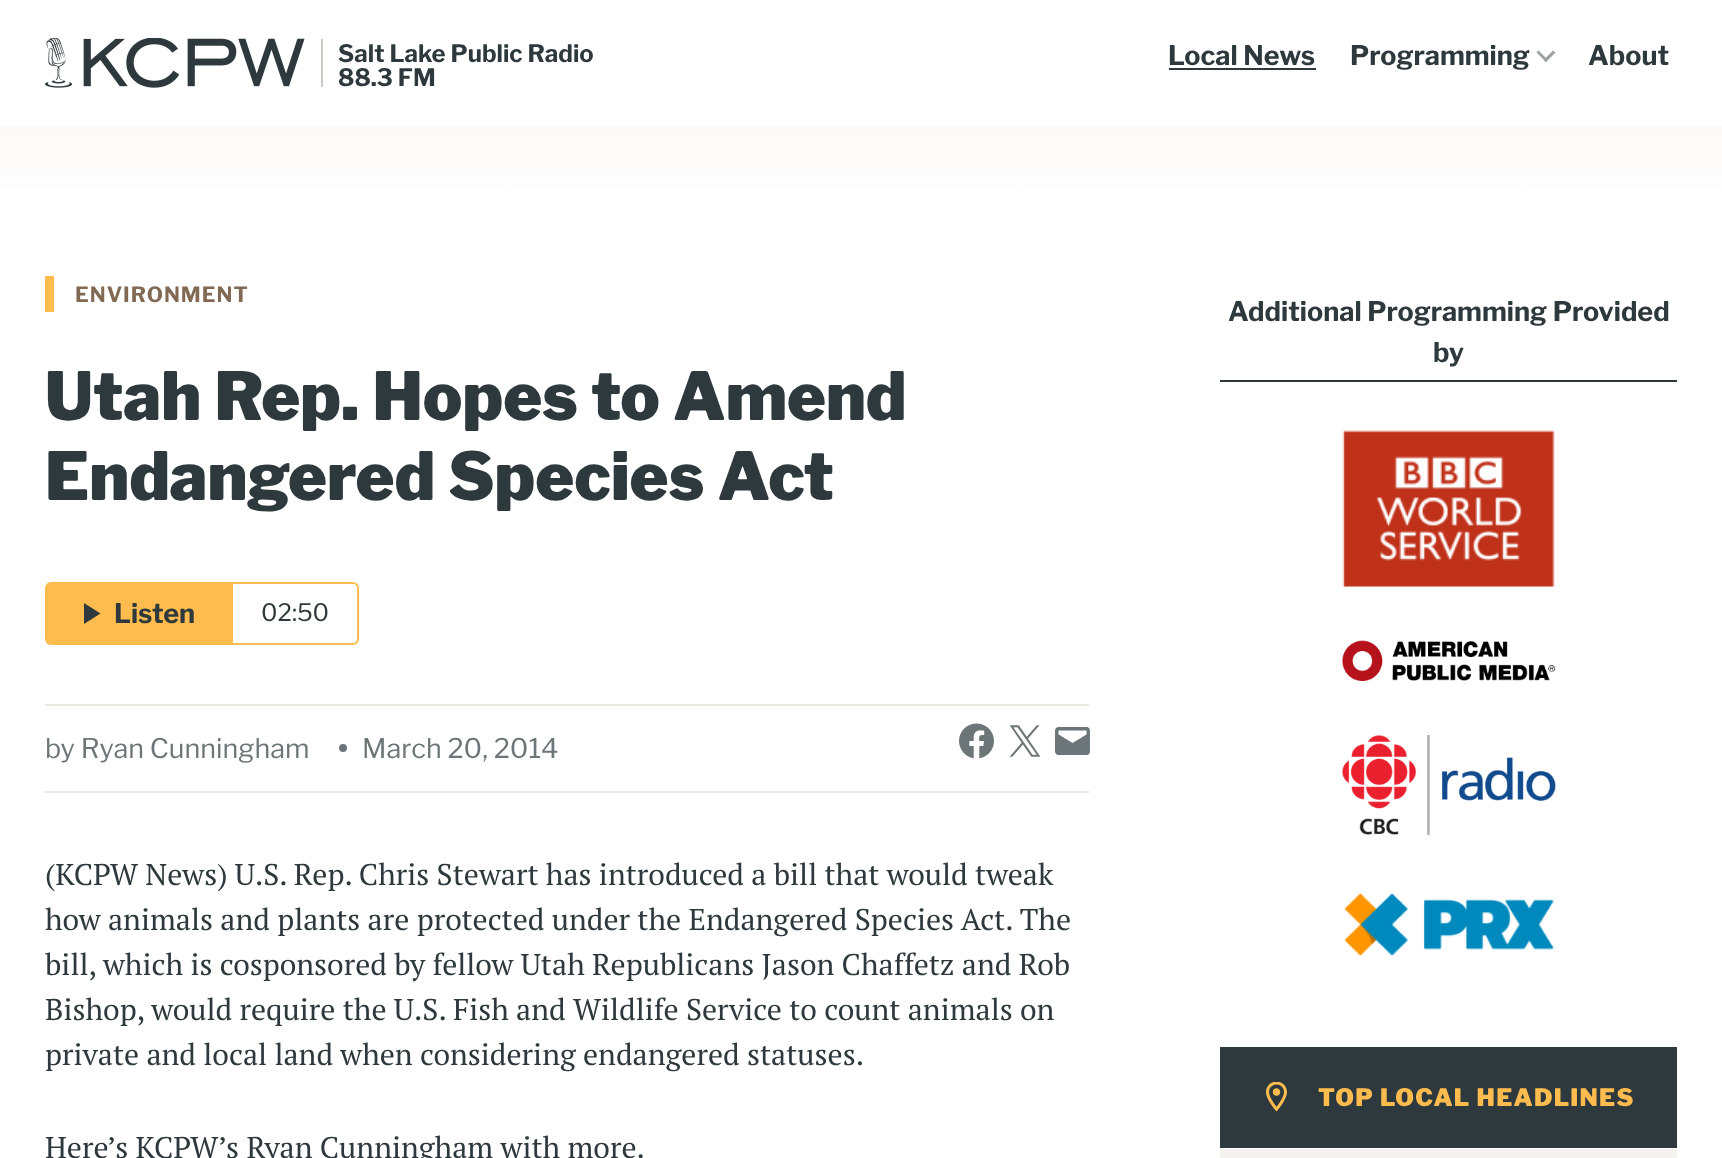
<?xml version="1.0" encoding="UTF-8"?>
<svg xmlns="http://www.w3.org/2000/svg" xmlns:xlink="http://www.w3.org/1999/xlink" width="1722" height="1158">
  <defs>
    <linearGradient id="g1" gradientUnits="userSpaceOnUse" x1="861" y1="0" x2="861" y2="225"><stop offset="0" stop-color="#f5f3f0" /><stop offset="1" stop-color="#ffffff" /></linearGradient>
  </defs>
  <rect width="100%" height="100%" fill="#ffffff" />
  <image x="45" y="38" width="260" height="50" xlink:href="image1.png" />
  <rect x="321" y="39" width="2" height="48" fill="#cdc9c4" />
  <rect x="1169" y="68" width="147" height="2" fill="#2e393d" />
  <path d="M 1536.5 52.5 l 2 -2 l 9.5 9.5 l -2 2 z" fill="#9ba1a4" />
  <path d="M 1543.5 60 l 9.5 -9.5 l 2.5 2 l -9.5 9.5 z" fill="#9ba1a4" />
  <rect x="45" y="276" width="9" height="36" fill="#ffbc4e" />
  <rect x="46" y="583" width="312" height="61" rx="5" fill="none" stroke="#ffbc4e" stroke-width="2" />
  <rect x="47" y="584" width="186" height="60" fill="#ffbc4e" />
  <path d="M 84 624 v -21 l 16.5 10.5 z" fill="#2e393d" />
  <rect x="45" y="704" width="1044" height="2" fill="#eae7e3" />
  <rect x="45" y="791" width="1044" height="2" fill="#eae7e3" />
  <circle cx="343" cy="748" r="4" fill="#6c7578" />
  <image x="959" y="723" width="35" height="36" xlink:href="image2.png" />
  <image x="1009" y="725" width="32" height="32" xlink:href="image3.png" />
  <image x="1055" y="727" width="35" height="28" xlink:href="image4.png" />
  <rect y="126" width="1722" height="62" fill="url(#g1)" />
  <rect x="1220" y="380" width="457" height="2" fill="#2e393d" />
  <image x="1342" y="430" width="213" height="157" xlink:href="image5.png" />
  <image x="1342" y="640" width="214" height="41" xlink:href="image6.png" />
  <image x="1342" y="735" width="214" height="101" xlink:href="image7.png" />
  <image x="1344" y="892" width="210" height="64" xlink:href="image8.png" />
  <rect x="1220" y="1047" width="457" height="101" fill="#2e393d" />
  <image x="1266" y="1082" width="21" height="30" xlink:href="image9.png" />
  <rect x="1220" y="1149" width="457" height="9" fill="#f5f3f0" />
  <text x="338" y="62" style="font-family: Libre Franklin; font-size: 24px; font-weight: bold; fill: #2e393d">Salt Lake Public Radio</text>
  <text x="338" y="86" style="font-family: Libre Franklin; font-size: 24px; font-weight: bold; fill: #2e393d">88.3 FM</text>
  <text x="1168" y="65" style="font-family: Libre Franklin; font-size: 27px; font-weight: bold; fill: #2e393d">Local News</text>
  <text x="1350" y="65" style="font-family: Libre Franklin; font-size: 27px; font-weight: bold; fill: #2e393d">Programming</text>
  <text x="1588" y="65" style="font-family: Libre Franklin; font-size: 27px; font-weight: bold; fill: #2e393d">About</text>
  <text x="75" y="302" style="font-family: Libre Franklin; font-size: 21px; font-weight: bold; letter-spacing: 1px; fill: #826953">ENVIRONMENT</text>
  <text x="45" y="420" style="font-family: Libre Franklin; font-size: 66px; font-weight: 900; fill: #2e393d">Utah Rep. Hopes to Amend</text>
  <text x="45" y="500" style="font-family: Libre Franklin; font-size: 66px; font-weight: 900; fill: #2e393d">Endangered Species Act</text>
  <text x="114" y="623" style="font-family: Libre Franklin; font-size: 27px; font-weight: bold; fill: #2e393d">Listen</text>
  <text x="261" y="621" style="font-family: Libre Franklin; font-size: 24px; fill: #2e393d">02:50</text>
  <text x="45" y="758" style="font-family: Libre Franklin; font-size: 27px; fill: #6c7578">by Ryan Cunningham</text>
  <text x="362" y="758" style="font-family: Libre Franklin; font-size: 27px; fill: #6c7578">March 20, 2014</text>
  <text x="45" y="885" style="font-family: PT Serif; font-size: 30px; fill: #2e393d">(KCPW News) U.S. Rep. Chris Stewart has introduced a bill that would tweak</text>
  <text x="45" y="930" style="font-family: PT Serif; font-size: 30px; fill: #2e393d">how animals and plants are protected under the Endangered Species Act. The</text>
  <text x="45" y="975" style="font-family: PT Serif; font-size: 30px; fill: #2e393d">bill, which is cosponsored by fellow Utah Republicans Jason Chaffetz and Rob</text>
  <text x="45" y="1020" style="font-family: PT Serif; font-size: 30px; fill: #2e393d">Bishop, would require the U.S. Fish and Wildlife Service to count animals on</text>
  <text x="45" y="1065" style="font-family: PT Serif; font-size: 30px; fill: #2e393d">private and local land when considering endangered statuses.</text>
  <text x="45" y="1158" style="font-family: PT Serif; font-size: 30px; fill: #2e393d">Here’s KCPW’s Ryan Cunningham with more.</text>
  <text x="1228" y="321" style="font-family: Libre Franklin; font-size: 27px; font-weight: bold; fill: #2e393d">Additional Programming Provided</text>
  <text x="1433" y="362" style="font-family: Libre Franklin; font-size: 27px; font-weight: bold; fill: #2e393d">by</text>
  <text x="1318" y="1106" style="font-family: Libre Franklin; font-size: 24px; font-weight: 900; letter-spacing: 1.25px; fill: #ffbc4e">TOP LOCAL HEADLINES</text>
</svg>
